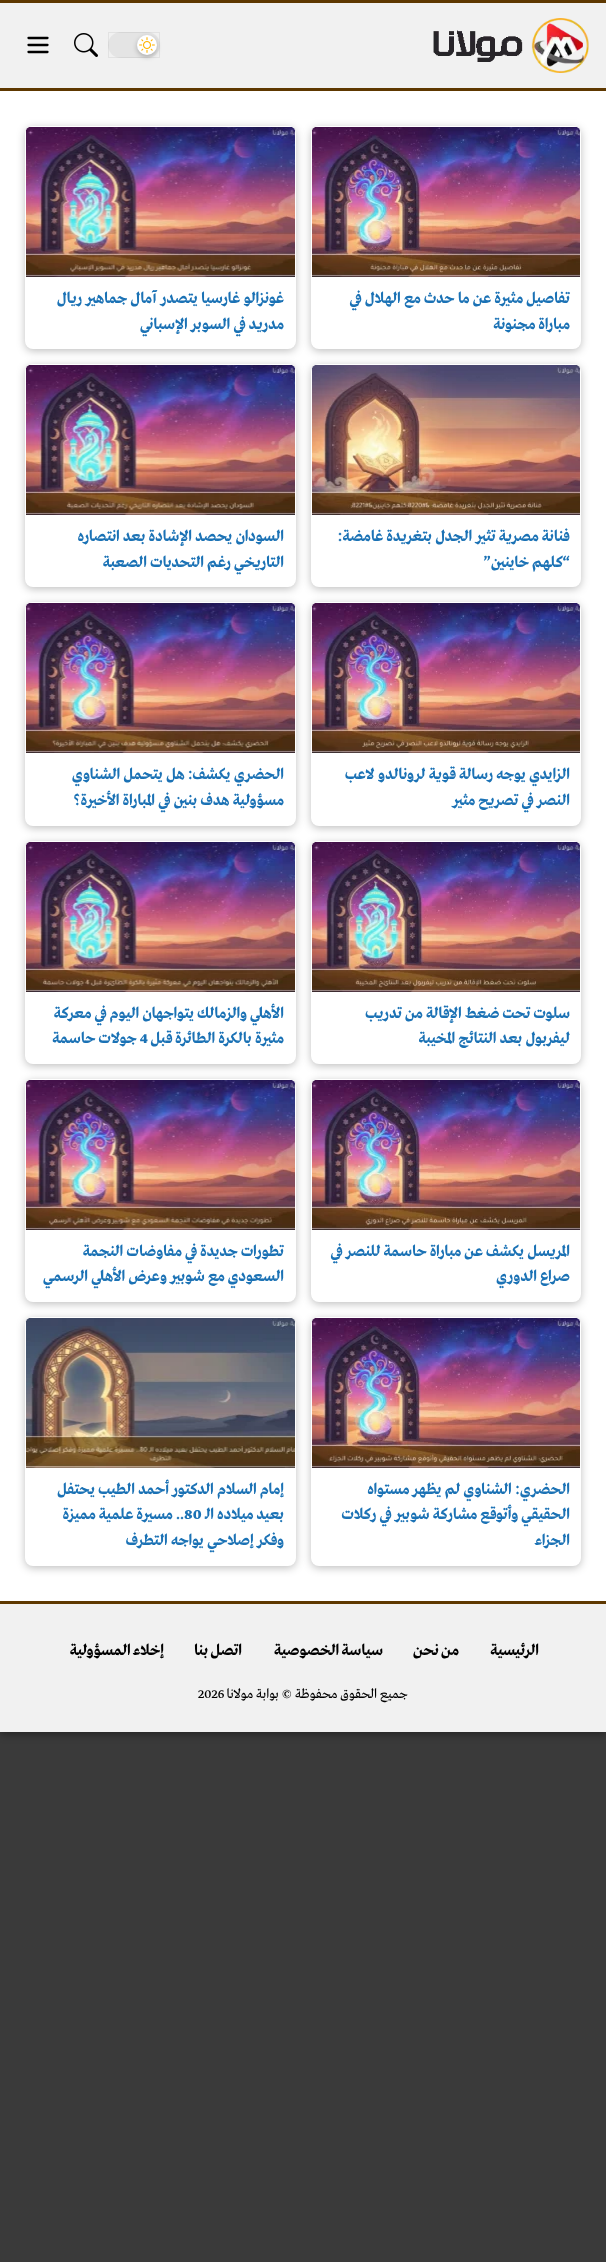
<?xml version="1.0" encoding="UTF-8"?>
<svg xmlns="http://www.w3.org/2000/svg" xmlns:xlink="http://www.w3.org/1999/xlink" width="606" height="2262">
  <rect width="100%" height="100%" fill="#3a3a3a" />
  <rect y="2" width="606" height="1732" fill="#000000" fill-opacity="0.4" filter="blur(4px)" />
  <rect y="91" width="606" height="1510" fill="#ffffff" />
  <rect y="3" width="606" height="85" fill="#f1f1f1" />
  <rect width="606" height="3" fill="#5e3800" />
  <rect y="88" width="606" height="3" fill="#5e3800" />
  <image x="433" y="18" width="156" height="55" xlink:href="image1.png" />
  <rect x="108" y="32" width="52" height="26" rx="13" fill="#e4e4e4" />
  <rect x="108.5" y="32.5" width="51" height="25" fill="none" stroke="#000000" stroke-opacity="0.06" />
  <rect x="137" y="37" width="20" height="20" rx="10" fill="#000000" fill-opacity="0.25" filter="blur(2.5px)" />
  <circle cx="147" cy="45" r="10" fill="#ffffff" />
  <image x="139" y="37" width="16" height="16" xlink:href="image2.png" />
  <image x="74" y="33" width="24" height="24" xlink:href="image3.png" />
  <path d="M 28.5 38 h 19 m -19 7 h 19 m -19 7 h 19" fill="none" stroke="#000000" stroke-width="2.3" stroke-linecap="round" stroke-linejoin="round" />
  <rect x="311" y="128" width="270" height="223" rx="8" fill="#000000" fill-opacity="0.25" filter="blur(4px)" />
  <rect x="311" y="126" width="270" height="223" rx="8" fill="#ffffff" />
  <image x="312" y="127" width="268" height="150" xlink:href="image4.png" />
  <rect x="25" y="128" width="271" height="223" rx="8" fill="#000000" fill-opacity="0.25" filter="blur(4px)" />
  <rect x="25" y="126" width="271" height="223" rx="8" fill="#ffffff" />
  <image x="26" y="127" width="269" height="150" xlink:href="image5.png" />
  <rect x="311" y="366" width="270" height="223" rx="8" fill="#000000" fill-opacity="0.25" filter="blur(4px)" />
  <rect x="311" y="364" width="270" height="223" rx="8" fill="#ffffff" />
  <image x="312" y="365" width="268" height="150" xlink:href="image6.png" />
  <rect x="25" y="366" width="271" height="223" rx="8" fill="#000000" fill-opacity="0.25" filter="blur(4px)" />
  <rect x="25" y="364" width="271" height="223" rx="8" fill="#ffffff" />
  <image x="26" y="365" width="269" height="150" xlink:href="image7.png" />
  <rect x="311" y="604" width="270" height="224" rx="8" fill="#000000" fill-opacity="0.25" filter="blur(4px)" />
  <rect x="311" y="602" width="270" height="224" rx="8" fill="#ffffff" />
  <image x="312" y="603" width="268" height="150" xlink:href="image8.png" />
  <rect x="25" y="604" width="271" height="224" rx="8" fill="#000000" fill-opacity="0.25" filter="blur(4px)" />
  <rect x="25" y="602" width="271" height="224" rx="8" fill="#ffffff" />
  <image x="26" y="603" width="269" height="150" xlink:href="image9.png" />
  <rect x="311" y="843" width="270" height="223" rx="8" fill="#000000" fill-opacity="0.25" filter="blur(4px)" />
  <rect x="311" y="841" width="270" height="223" rx="8" fill="#ffffff" />
  <image x="312" y="842" width="268" height="150" xlink:href="image10.png" />
  <rect x="25" y="843" width="271" height="223" rx="8" fill="#000000" fill-opacity="0.25" filter="blur(4px)" />
  <rect x="25" y="841" width="271" height="223" rx="8" fill="#ffffff" />
  <image x="26" y="842" width="269" height="150" xlink:href="image11.png" />
  <rect x="311" y="1081" width="270" height="223" rx="8" fill="#000000" fill-opacity="0.25" filter="blur(4px)" />
  <rect x="311" y="1079" width="270" height="223" rx="8" fill="#ffffff" />
  <image x="312" y="1080" width="268" height="150" xlink:href="image12.png" />
  <rect x="25" y="1081" width="271" height="223" rx="8" fill="#000000" fill-opacity="0.25" filter="blur(4px)" />
  <rect x="25" y="1079" width="271" height="223" rx="8" fill="#ffffff" />
  <image x="26" y="1080" width="269" height="150" xlink:href="image13.png" />
  <rect x="311" y="1319" width="270" height="249" rx="8" fill="#000000" fill-opacity="0.25" filter="blur(4px)" />
  <rect x="311" y="1317" width="270" height="249" rx="8" fill="#ffffff" />
  <image x="312" y="1318" width="268" height="150" xlink:href="image14.png" />
  <rect x="25" y="1319" width="271" height="249" rx="8" fill="#000000" fill-opacity="0.25" filter="blur(4px)" />
  <rect x="25" y="1317" width="271" height="249" rx="8" fill="#ffffff" />
  <image x="26" y="1318" width="269" height="150" xlink:href="image15.png" />
  <rect y="1604" width="606" height="128" fill="#f1f1f1" />
  <rect y="1601" width="606" height="3" fill="#5e3800" />
  <text x="570" y="303" style="font-family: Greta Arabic; font-size: 16px; font-weight: bold; direction: rtl; fill: #1b72b5">تفاصيل مثيرة عن ما حدث مع الهلال في</text>
  <text x="570" y="329" style="font-family: Greta Arabic; font-size: 16px; font-weight: bold; direction: rtl; fill: #1b72b5">مباراة مجنونة</text>
  <text x="284" y="303" style="font-family: Greta Arabic; font-size: 16px; font-weight: bold; direction: rtl; fill: #1b72b5">غونزالو غارسيا يتصدر آمال جماهير ريال</text>
  <text x="284" y="329" style="font-family: Greta Arabic; font-size: 16px; font-weight: bold; direction: rtl; fill: #1b72b5">مدريد في السوبر الإسباني</text>
  <text x="570" y="541" style="font-family: Greta Arabic; font-size: 16px; font-weight: bold; direction: rtl; fill: #1b72b5">فنانة مصرية تثير الجدل بتغريدة غامضة:</text>
  <text x="570" y="567" style="font-family: Greta Arabic; font-size: 16px; font-weight: bold; direction: rtl; fill: #1b72b5">“كلهم خاينين”</text>
  <text x="284" y="541" style="font-family: Greta Arabic; font-size: 16px; font-weight: bold; direction: rtl; fill: #1b72b5">السودان يحصد الإشادة بعد انتصاره</text>
  <text x="284" y="567" style="font-family: Greta Arabic; font-size: 16px; font-weight: bold; direction: rtl; fill: #1b72b5">التاريخي رغم التحديات الصعبة</text>
  <text x="570" y="779" style="font-family: Greta Arabic; font-size: 16px; font-weight: bold; direction: rtl; fill: #1b72b5">الزايدي يوجه رسالة قوية لرونالدو لاعب</text>
  <text x="570" y="805" style="font-family: Greta Arabic; font-size: 16px; font-weight: bold; direction: rtl; fill: #1b72b5">النصر في تصريح مثير</text>
  <text x="284" y="779" style="font-family: Greta Arabic; font-size: 16px; font-weight: bold; direction: rtl; fill: #1b72b5">الحضري يكشف: هل يتحمل الشناوي</text>
  <text x="284" y="805" style="font-family: Greta Arabic; font-size: 16px; font-weight: bold; direction: rtl; fill: #1b72b5">مسؤولية هدف بنين في المباراة الأخيرة؟</text>
  <text x="570" y="1018" style="font-family: Greta Arabic; font-size: 16px; font-weight: bold; direction: rtl; fill: #1b72b5">سلوت تحت ضغط الإقالة من تدريب</text>
  <text x="570" y="1043" style="font-family: Greta Arabic; font-size: 16px; font-weight: bold; direction: rtl; fill: #1b72b5">ليفربول بعد النتائج المخيبة</text>
  <text x="284" y="1018" style="font-family: Greta Arabic; font-size: 16px; font-weight: bold; direction: rtl; fill: #1b72b5">الأهلي والزمالك يتواجهان اليوم في معركة</text>
  <text x="284" y="1043" style="font-family: Greta Arabic; font-size: 16px; font-weight: bold; direction: rtl; fill: #1b72b5">مثيرة بالكرة الطائرة قبل</text>
  <text x="140" y="1043" style="font-family: Greta Arabic; font-size: 16px; font-weight: bold; fill: #1b72b5">4</text>
  <text x="137" y="1043" style="font-family: Greta Arabic; font-size: 16px; font-weight: bold; direction: rtl; fill: #1b72b5">جولات حاسمة</text>
  <text x="570" y="1256" style="font-family: Greta Arabic; font-size: 16px; font-weight: bold; direction: rtl; fill: #1b72b5">المريسل يكشف عن مباراة حاسمة للنصر في</text>
  <text x="570" y="1281" style="font-family: Greta Arabic; font-size: 16px; font-weight: bold; direction: rtl; fill: #1b72b5">صراع الدوري</text>
  <text x="284" y="1256" style="font-family: Greta Arabic; font-size: 16px; font-weight: bold; direction: rtl; fill: #1b72b5">تطورات جديدة في مفاوضات النجمة</text>
  <text x="284" y="1281" style="font-family: Greta Arabic; font-size: 16px; font-weight: bold; direction: rtl; fill: #1b72b5">السعودي مع شوبير وعرض الأهلي الرسمي</text>
  <text x="570" y="1494" style="font-family: Greta Arabic; font-size: 16px; font-weight: bold; direction: rtl; fill: #1b72b5">الحضري: الشناوي لم يظهر مستواه</text>
  <text x="570" y="1519" style="font-family: Greta Arabic; font-size: 16px; font-weight: bold; direction: rtl; fill: #1b72b5">الحقيقي وأتوقع مشاركة شوبير في ركلات</text>
  <text x="570" y="1545" style="font-family: Greta Arabic; font-size: 16px; font-weight: bold; direction: rtl; fill: #1b72b5">الجزاء</text>
  <text x="284" y="1494" style="font-family: Greta Arabic; font-size: 16px; font-weight: bold; direction: rtl; fill: #1b72b5">إمام السلام الدكتور أحمد الطيب يحتفل</text>
  <text x="284" y="1519" style="font-family: Greta Arabic; font-size: 16px; font-weight: bold; direction: rtl; fill: #1b72b5">بعيد ميلاده الـ</text>
  <text x="184" y="1519" style="font-family: Greta Arabic; font-size: 16px; font-weight: bold; fill: #1b72b5">80</text>
  <text x="184" y="1519" style="font-family: Greta Arabic; font-size: 16px; font-weight: bold; direction: rtl; fill: #1b72b5">.. مسيرة علمية مميزة</text>
  <text x="284" y="1545" style="font-family: Greta Arabic; font-size: 16px; font-weight: bold; direction: rtl; fill: #1b72b5">وفكر إصلاحي يواجه التطرف</text>
  <text x="539" y="1655" style="font-family: Greta Arabic; font-size: 16px; font-weight: bold; letter-spacing: 0.1px; direction: rtl; fill: #000000">الرئيسية</text>
  <text x="459" y="1655" word-spacing="-1" style="font-family: Greta Arabic; font-size: 16px; font-weight: bold; letter-spacing: 0.1px; direction: rtl; fill: #000000">من نحن</text>
  <text x="383" y="1655" word-spacing="-1" style="font-family: Greta Arabic; font-size: 16px; font-weight: bold; letter-spacing: 0.1px; direction: rtl; fill: #000000">سياسة الخصوصية</text>
  <text x="242" y="1655" word-spacing="-1" style="font-family: Greta Arabic; font-size: 16px; font-weight: bold; letter-spacing: 0.1px; direction: rtl; fill: #000000">اتصل بنا</text>
  <text x="164" y="1655" word-spacing="-1" style="font-family: Greta Arabic; font-size: 16px; font-weight: bold; letter-spacing: 0.1px; direction: rtl; fill: #000000">إخلاء المسؤولية</text>
  <text x="408" y="1698" style="font-family: Greta Arabic; font-size: 14px; direction: rtl; fill: #000000">جميع الحقوق محفوظة © بوابة مولانا</text>
  <text x="198" y="1698" style="font-family: Greta Arabic; font-size: 14px; fill: #000000">2026</text>
</svg>
